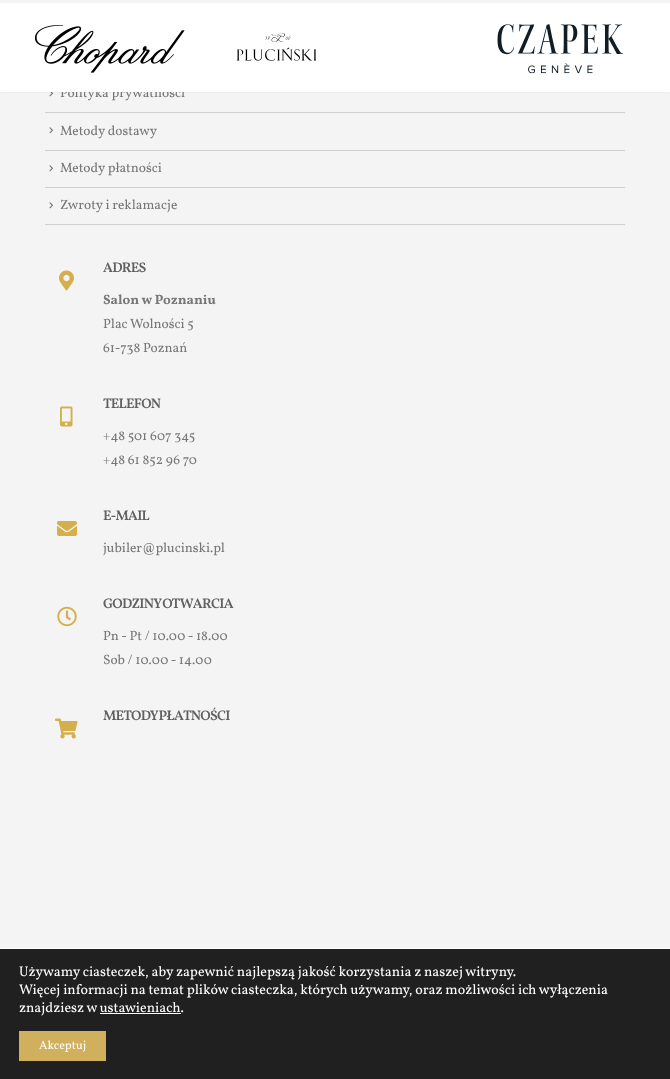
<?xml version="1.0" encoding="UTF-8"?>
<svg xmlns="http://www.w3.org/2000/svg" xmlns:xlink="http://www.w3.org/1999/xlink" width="670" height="1079">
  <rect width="100%" height="100%" fill="#f4f4f4" />
  <image x="49" y="92" width="4" height="5" xlink:href="image4.png" />
  <rect width="670" height="92" fill="#000000" fill-opacity="0.06" filter="blur(1.5px)" />
  <rect width="670" height="3" fill="#f4f4f4" />
  <rect x="45" y="224" width="580" height="1" fill="#cfcfcf" />
  <rect x="45" y="112" width="580" height="1" fill="#cfcfcf" />
  <image x="49" y="127" width="4" height="7" xlink:href="image5.png" />
  <rect x="45" y="150" width="580" height="1" fill="#cfcfcf" />
  <image x="49" y="165" width="4" height="7" xlink:href="image5.png" />
  <rect x="45" y="187" width="580" height="1" fill="#cfcfcf" />
  <image x="49" y="202" width="4" height="7" xlink:href="image5.png" />
  <image x="59" y="270" width="15" height="21" xlink:href="image6.png" />
  <image x="60" y="406" width="13" height="21" xlink:href="image7.png" />
  <image x="57" y="521" width="20" height="15" xlink:href="image8.png" />
  <image x="57" y="606" width="20" height="21" xlink:href="image9.png" />
  <image x="55" y="718" width="23" height="21" xlink:href="image10.png" />
  <rect y="949" width="670" height="130" fill="#202020" />
  <rect y="948" width="670" height="1" fill="#ffffff" />
  <rect x="100" y="1013" width="81" height="1" fill="#ffffff" />
  <rect x="19" y="1031" width="87" height="30" fill="#d0b05d" />
  <text x="60" y="97" style="font-family: Vollkorn; font-size: 13.5px; fill: #777777">Polityka prywatności</text>
  <rect y="3" width="670" height="89" fill="#ffffff" />
  <image x="497" y="24" width="126" height="50" xlink:href="image3.png" />
  <image x="236" y="33" width="80" height="28" xlink:href="image2.png" />
  <image x="34" y="25" width="151" height="48" xlink:href="image1.png" />
  <text x="60" y="135" style="font-family: Vollkorn; font-size: 13.5px; fill: #777777">Metody dostawy</text>
  <text x="60" y="172" style="font-family: Vollkorn; font-size: 13.5px; fill: #777777">Metody płatności</text>
  <text x="60" y="209" style="font-family: Vollkorn; font-size: 13.5px; fill: #777777">Zwroty i reklamacje</text>
  <text x="103" y="272" style="font-family: Vollkorn; font-size: 14px; font-weight: 600; letter-spacing: -0.75px; fill: #606060">ADRES</text>
  <text x="103" y="304" style="font-family: Vollkorn; font-size: 13.5px; font-weight: bold; fill: #777777">Salon w Poznaniu</text>
  <text x="103" y="328" style="font-family: Vollkorn; font-size: 13.5px; fill: #777777">Plac Wolności 5</text>
  <text x="103" y="352" style="font-family: Vollkorn; font-size: 13.5px; fill: #777777">61-738 Poznań</text>
  <text x="103" y="408" style="font-family: Vollkorn; font-size: 14px; font-weight: 600; letter-spacing: -0.75px; fill: #606060">TELEFON</text>
  <text x="103" y="440" style="font-family: Vollkorn; font-size: 13.5px; fill: #777777">+48 501 607 345</text>
  <text x="103" y="464" style="font-family: Vollkorn; font-size: 13.5px; fill: #777777">+48 61 852 96 70</text>
  <text x="103" y="520" style="font-family: Vollkorn; font-size: 14px; font-weight: 600; letter-spacing: -0.75px; fill: #606060">E-MAIL</text>
  <text x="103" y="552" style="font-family: Vollkorn; font-size: 13.5px; fill: #777777">jubiler@plucinski.pl</text>
  <text x="103" y="608" word-spacing="-1" style="font-family: Vollkorn; font-size: 14px; font-weight: 600; letter-spacing: -0.75px; fill: #606060">GODZINY OTWARCIA</text>
  <text x="103" y="640" style="font-family: Vollkorn; font-size: 13.5px; fill: #777777">Pn - Pt / 10.00 - 18.00</text>
  <text x="103" y="664" style="font-family: Vollkorn; font-size: 13.5px; fill: #777777">Sob / 10.00 - 14.00</text>
  <text x="103" y="720" word-spacing="-1" style="font-family: Vollkorn; font-size: 14px; font-weight: 600; letter-spacing: -0.75px; fill: #606060">METODY PŁATNOŚCI</text>
  <text x="19" y="976" style="font-family: Vollkorn; font-size: 14px; fill: #ffffff">Używamy ciasteczek, aby zapewnić najlepszą jakość korzystania z naszej witryny.</text>
  <text x="19" y="994" style="font-family: Vollkorn; font-size: 14px; fill: #ffffff">Więcej informacji na temat plików ciasteczka, których używamy, oraz możliwości ich wyłączenia</text>
  <text x="19" y="1012" style="font-family: Vollkorn; font-size: 14px; fill: #ffffff">znajdziesz w ustawieniach.</text>
  <text x="39" y="1049" style="font-family: Vollkorn; font-size: 12px; fill: #ffffff">Akceptuj</text>
</svg>
